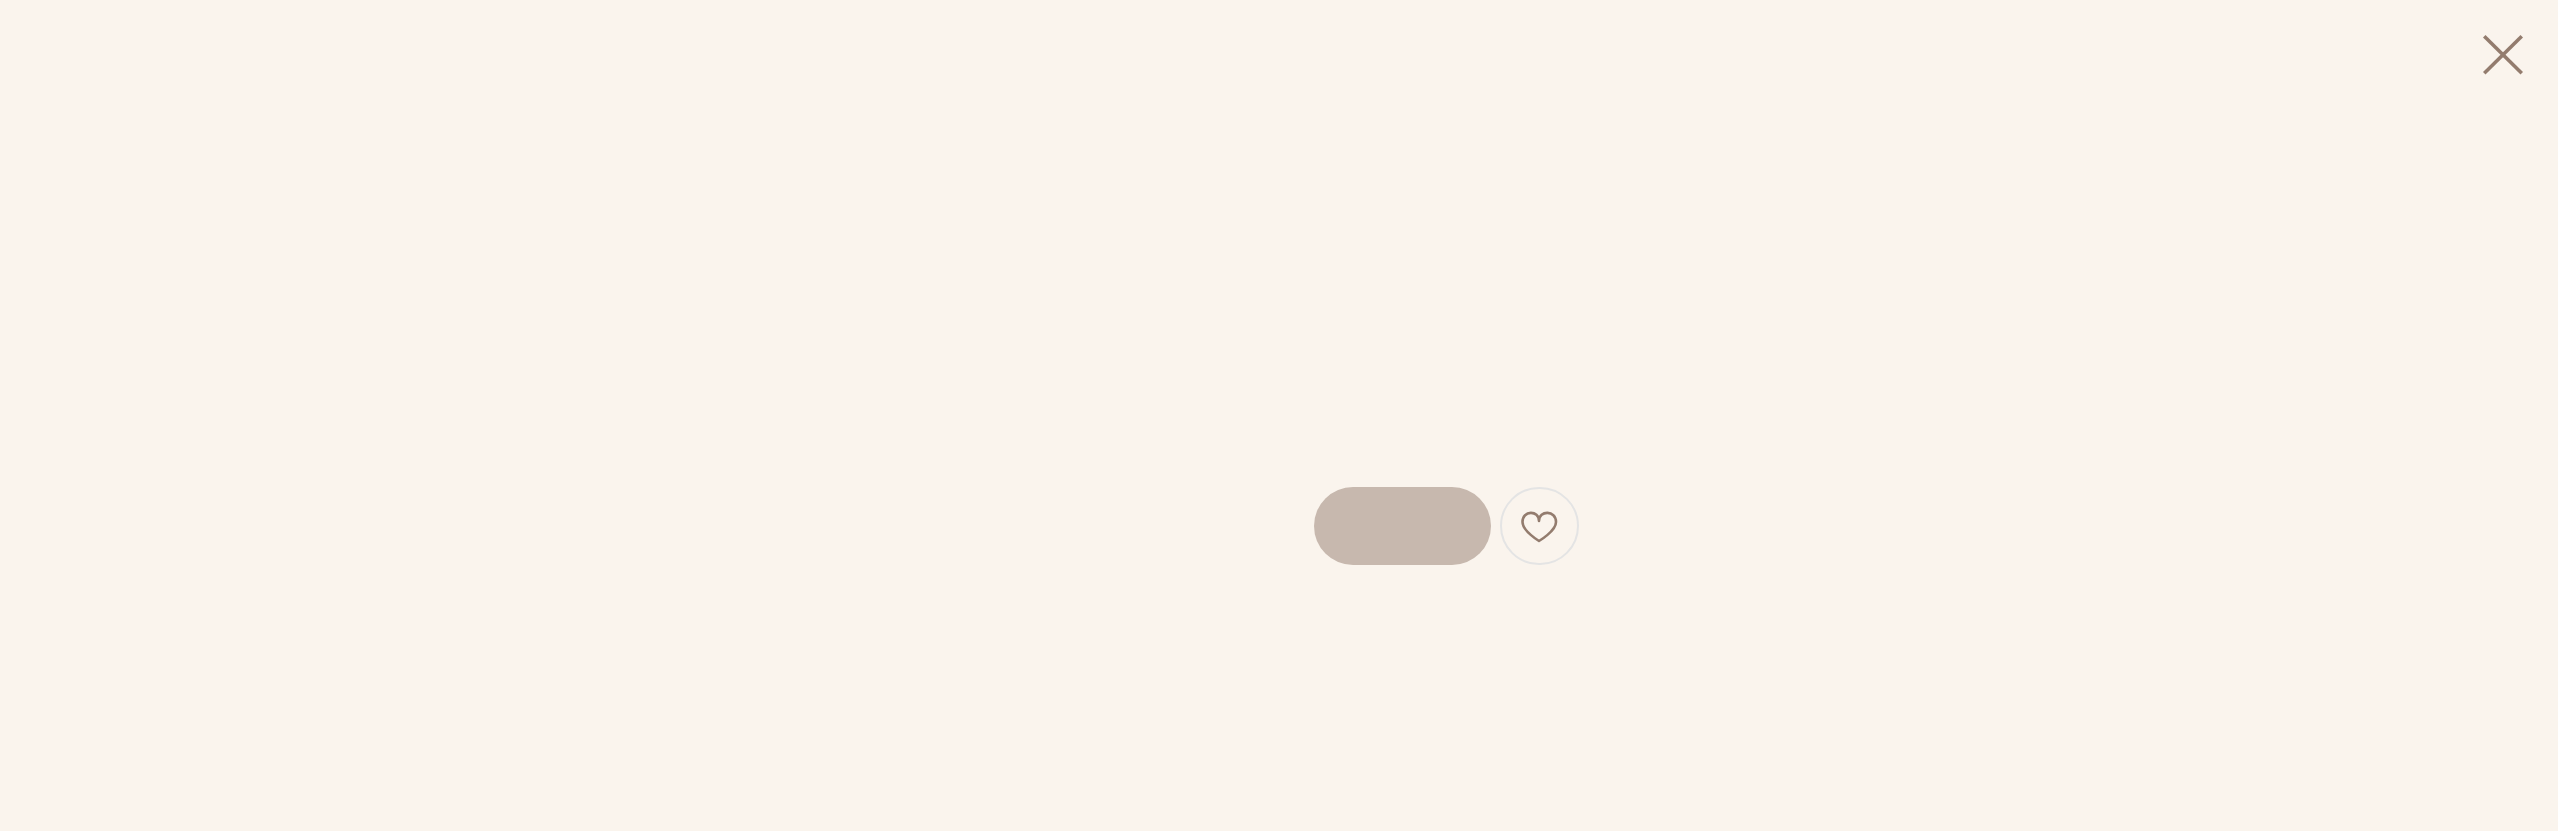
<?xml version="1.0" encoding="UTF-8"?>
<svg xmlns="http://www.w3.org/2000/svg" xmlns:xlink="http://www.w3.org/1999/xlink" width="2558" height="831">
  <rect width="100%" height="100%" fill="#faf4ed" />
  <path d="M 2483 37.5 l 2.5 -2.5 l 37.5 37 l -2.5 2.5 z" fill="#937c6e" fill-rule="evenodd" />
  <path d="M 2520.5 35 l 2.5 2.5 l -37.5 37 l -2.5 -2.5 z" fill="#937c6e" fill-rule="evenodd" />
  <rect x="1314" y="487" width="177" height="78" rx="39" fill="#c7b8ae" />
  <rect x="1501" y="488" width="77" height="76" rx="38" fill="none" stroke="#e4e4e4" stroke-width="2" />
  <path d="M 1556 522 c 0 9 -17 19 -17 19 c 0 0 -16.5 -10 -16.5 -19 c 0 -12 16.5 -12 16.5 -1 c 0 -11 17 -11 17 1 z" fill="none" stroke="#937c6e" stroke-width="2.6" stroke-linejoin="round" />
</svg>
